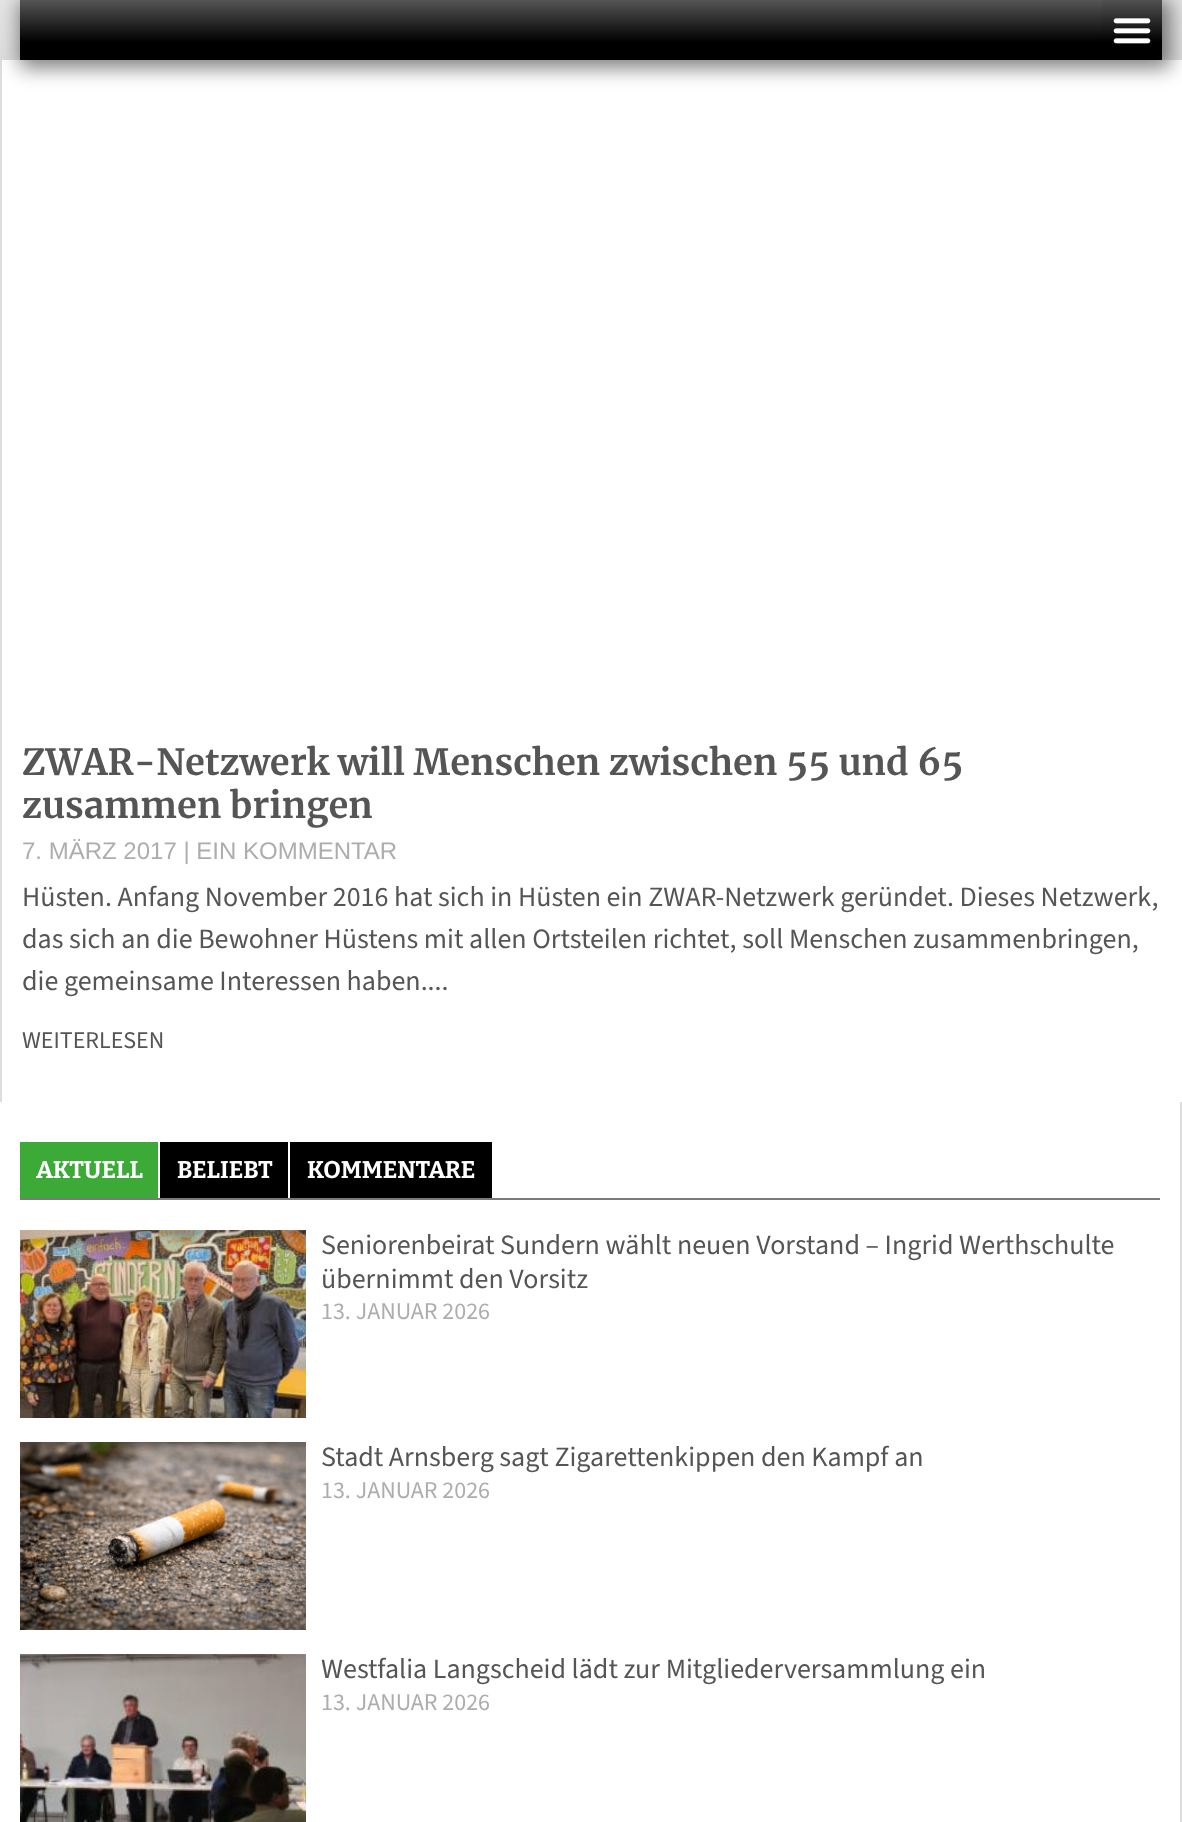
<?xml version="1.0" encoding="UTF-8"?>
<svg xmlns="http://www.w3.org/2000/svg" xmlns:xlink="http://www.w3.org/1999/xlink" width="1182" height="1822">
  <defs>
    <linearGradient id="g1" gradientUnits="userSpaceOnUse" x1="591" y1="0" x2="591" y2="60"><stop offset="0" stop-color="#e4e5e4" /><stop offset="1" stop-color="#dddddd" /></linearGradient>
    <linearGradient id="g2" gradientUnits="userSpaceOnUse" x1="591" y1="0" x2="591" y2="60"><stop offset="0" stop-color="#555555" /><stop offset="0.7" stop-color="#000000" /></linearGradient>
    <linearGradient id="g3" gradientUnits="userSpaceOnUse" x1="591" y1="0" x2="591" y2="60"><stop offset="0" stop-color="#515151" /><stop offset="0.7" stop-color="#000000" /></linearGradient>
  </defs>
  <rect width="100%" height="100%" fill="#ffffff" />
  <rect width="1182" height="60" fill="url(#g1)" />
  <rect y="60" width="2" height="1042" fill="#dddddd" />
  <rect x="20" width="1150" height="68" fill="#000000" fill-opacity="0.5" filter="blur(10px)" />
  <rect x="20" width="1082" height="60" fill="url(#g2)" />
  <rect x="1102" width="60" height="60" fill="url(#g3)" />
  <image x="1113" y="18" width="38" height="26" xlink:href="image1.png" />
  <rect x="1180" y="1102" width="2" height="720" fill="#dddddd" />
  <rect x="20" y="1198" width="1140" height="2" fill="#7a7a7a" />
  <rect x="20" y="1142" width="138" height="56" fill="#3caa36" />
  <rect x="160" y="1142" width="128" height="56" fill="#000000" />
  <rect x="290" y="1142" width="202" height="56" fill="#000000" />
  <image x="20" y="1230" width="286" height="188" xlink:href="image2.png" />
  <image x="20" y="1442" width="286" height="188" xlink:href="image3.png" />
  <image x="20" y="1654" width="286" height="168" xlink:href="image4.png" />
  <text x="22" y="775" style="font-family: Merriweather; font-size: 36px; font-weight: bold; fill: #555555">ZWAR-Netzwerk will Menschen zwischen 55 und 65</text>
  <text x="22" y="818" style="font-family: Merriweather; font-size: 36px; font-weight: bold; fill: #555555">zusammen bringen</text>
  <text x="22" y="859" style="font-family: Liberation Sans; font-size: 24px; fill: #adadad">7. MÄRZ 2017 | EIN KOMMENTAR</text>
  <text x="22" y="906" style="font-family: 'Source Sans 3'; font-size: 28px; font-weight: 200; fill: #555555">Hüsten. Anfang November 2016 hat sich in Hüsten ein ZWAR-Netzwerk geründet. Dieses Netzwerk,</text>
  <text x="22" y="948" style="font-family: 'Source Sans 3'; font-size: 28px; font-weight: 200; fill: #555555">das sich an die Bewohner Hüstens mit allen Ortsteilen richtet, soll Menschen zusammenbringen,</text>
  <text x="22" y="990" style="font-family: 'Source Sans 3'; font-size: 28px; font-weight: 200; fill: #555555">die gemeinsame Interessen haben....</text>
  <text x="22" y="1048" style="font-family: 'Source Sans 3'; font-size: 24px; font-weight: 200; fill: #555555">WEITERLESEN</text>
  <text x="36" y="1178" style="font-family: Bitter; font-size: 24px; font-weight: 100; fill: #ffffff">AKTUELL</text>
  <text x="177" y="1178" style="font-family: Bitter; font-size: 24px; font-weight: 100; fill: #ffffff">BELIEBT</text>
  <text x="307" y="1178" style="font-family: Bitter; font-size: 24px; font-weight: 100; fill: #ffffff">KOMMENTARE</text>
  <text x="321" y="1254" style="font-family: 'Source Sans 3'; font-size: 28px; font-weight: 200; fill: #555555">Seniorenbeirat Sundern wählt neuen Vorstand – Ingrid Werthschulte</text>
  <text x="321" y="1288" style="font-family: 'Source Sans 3'; font-size: 28px; font-weight: 200; fill: #555555">übernimmt den Vorsitz</text>
  <text x="321" y="1319" style="font-family: 'Source Sans 3'; font-size: 24px; font-weight: 200; fill: #adadad">13. JANUAR 2026</text>
  <text x="321" y="1466" style="font-family: 'Source Sans 3'; font-size: 28px; font-weight: 200; fill: #555555">Stadt Arnsberg sagt Zigarettenkippen den Kampf an</text>
  <text x="321" y="1498" style="font-family: 'Source Sans 3'; font-size: 24px; font-weight: 200; fill: #adadad">13. JANUAR 2026</text>
  <text x="321" y="1678" style="font-family: 'Source Sans 3'; font-size: 28px; font-weight: 200; fill: #555555">Westfalia Langscheid lädt zur Mitgliederversammlung ein</text>
  <text x="321" y="1710" style="font-family: 'Source Sans 3'; font-size: 24px; font-weight: 200; fill: #adadad">13. JANUAR 2026</text>
</svg>
